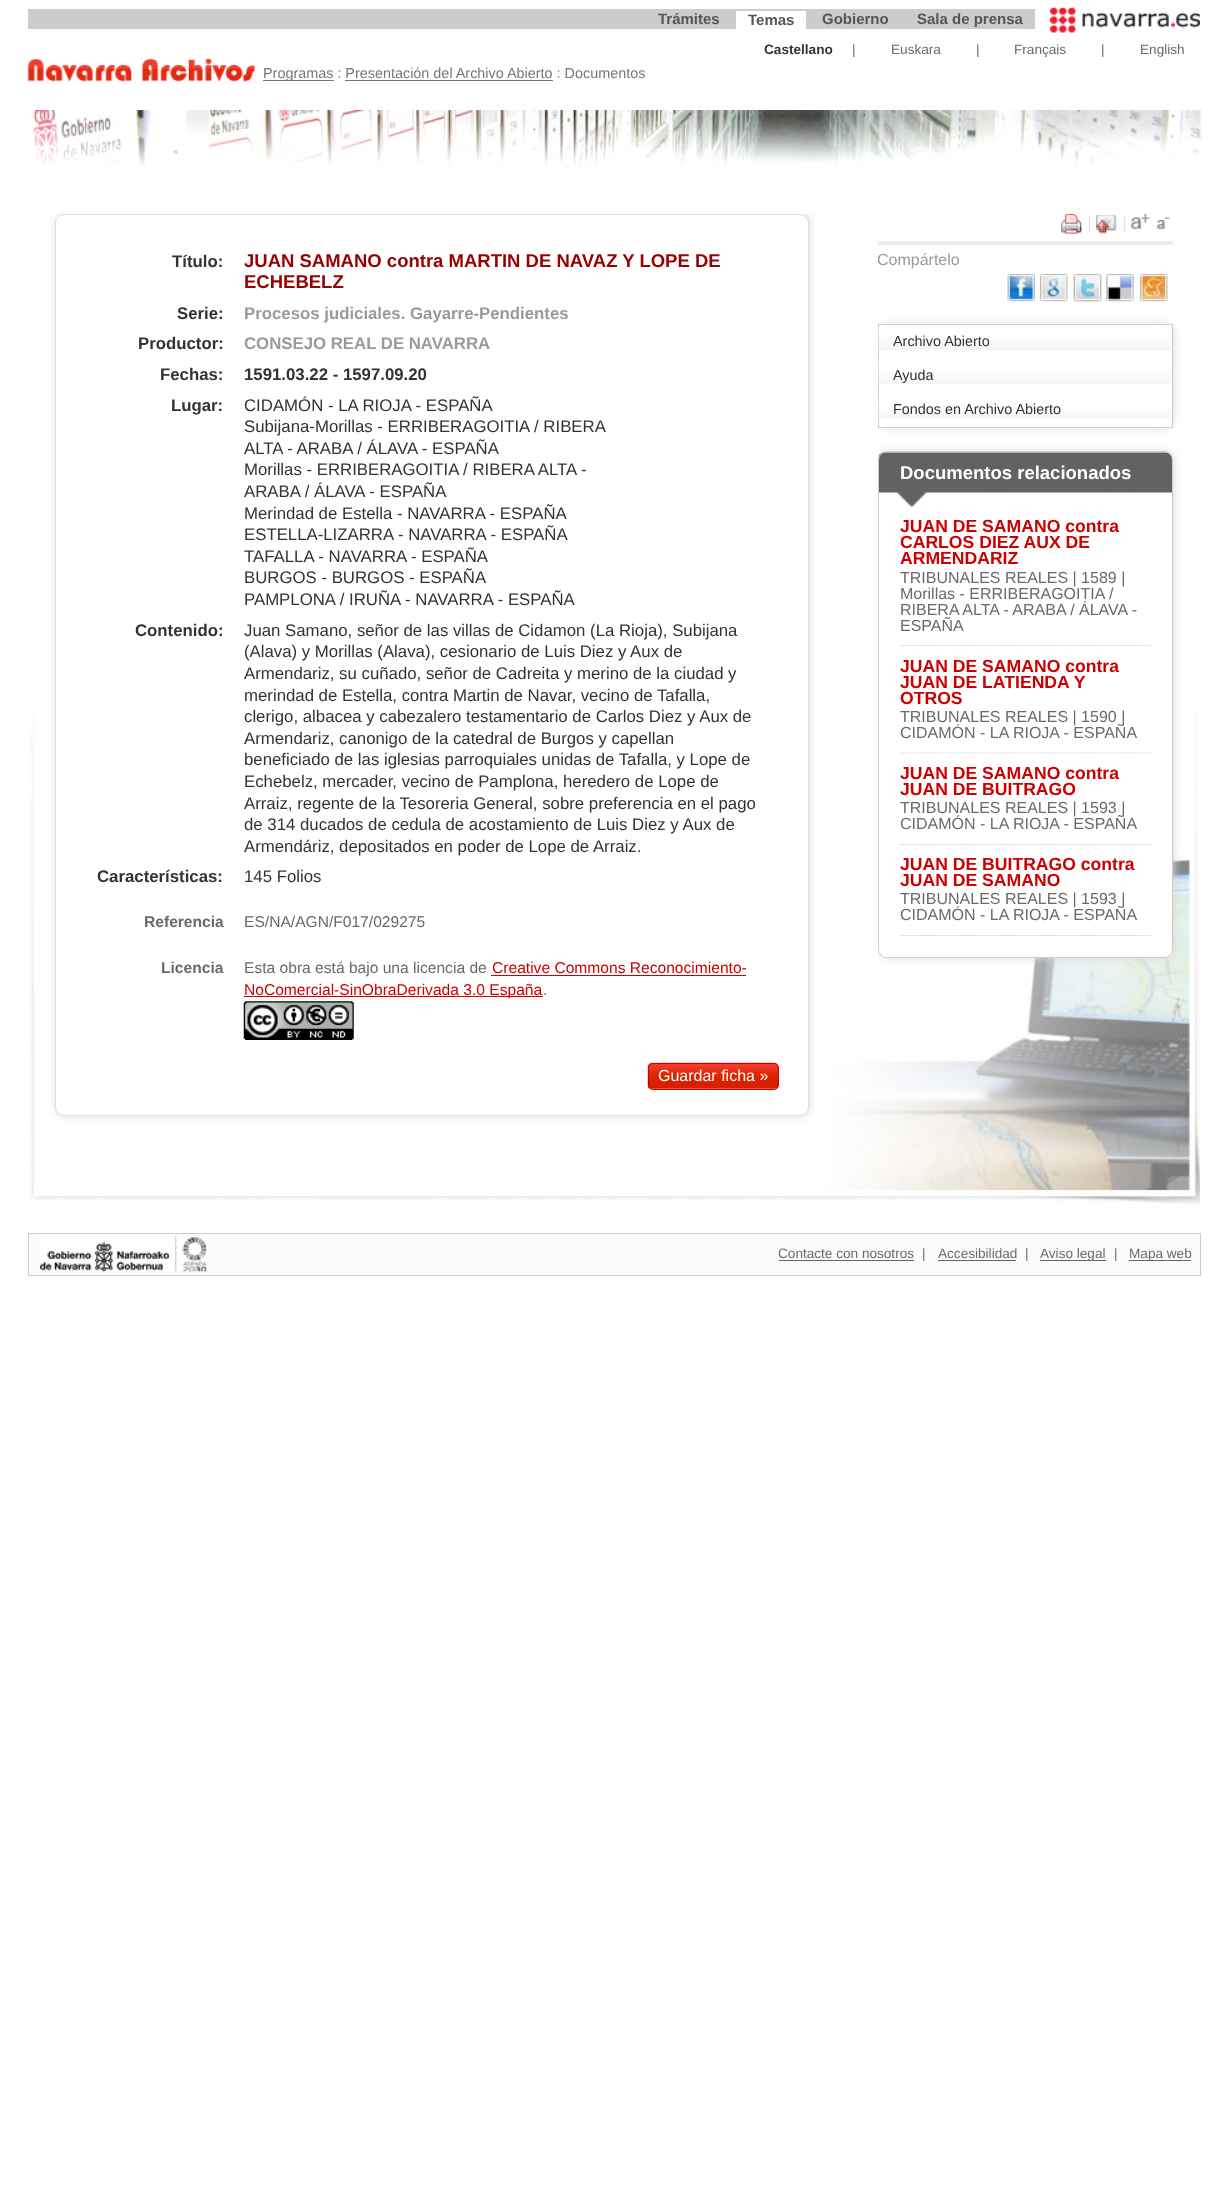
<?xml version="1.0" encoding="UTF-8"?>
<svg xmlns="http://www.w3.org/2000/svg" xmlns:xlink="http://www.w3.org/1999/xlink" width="1227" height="2196">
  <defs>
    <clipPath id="clip1"><rect x="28" y="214" width="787" height="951" /></clipPath>
    <clipPath id="clip2"><rect x="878" y="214" width="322" height="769" /></clipPath>
    <clipPath id="clip3"><rect x="878" y="214" width="322" height="769" /></clipPath>
  </defs>
  <rect width="100%" height="100%" fill="#ffffff" />
  <rect x="28" y="9" width="1007" height="20" fill="#cccccc" />
  <rect x="736" y="11" width="70" height="18" fill="#ffffff" />
  <image x="1050" y="7" width="150" height="26" xlink:href="image1.png" />
  <image x="27" y="58" width="229" height="24" xlink:href="image2.png" />
  <rect x="263" y="80" width="71" height="1" fill="#777777" />
  <rect x="345" y="80" width="208" height="1" fill="#777777" />
  <image x="28" y="110" width="1174" height="59" xlink:href="image3.png" />
  <image x="30" y="714" width="1170" height="491" xlink:href="image4.png" />
  <g clip-path="url(#clip1)">
    <rect x="56" y="214" width="754" height="902" rx="9" fill="#dbdbdb" filter="blur(4.5px)" />
  </g>
  <rect x="55.5" y="214.5" width="753" height="901" rx="8.5" fill="#ffffff" stroke="#dddddd" />
  <rect x="491" y="975" width="255" height="1" fill="#cc0000" />
  <rect x="244" y="996" width="299" height="1" fill="#cc0000" />
  <image x="243" y="1001" width="111" height="39" xlink:href="image5.png" />
  <image x="647" y="1062" width="132" height="27" xlink:href="image6.png" />
  <rect x="648.5" y="1063.5" width="130" height="26" rx="4.5" fill="none" stroke="#cc0000" />
  <image x="1061" y="213" width="29" height="21" xlink:href="image7.png" />
  <image x="1096" y="214" width="29" height="20" xlink:href="image8.png" />
  <image x="1131" y="213" width="19" height="16" xlink:href="image9.png" />
  <image x="1156" y="217" width="14" height="12" xlink:href="image10.png" />
  <rect x="878" y="241" width="295" height="4" fill="#ececec" />
  <image x="1007" y="273" width="28" height="29" xlink:href="image11.png" />
  <image x="1040" y="273" width="28" height="29" xlink:href="image12.png" />
  <image x="1073" y="273" width="29" height="29" xlink:href="image13.png" />
  <image x="1073" y="274" width="29" height="28" xlink:href="image14.png" />
  <image x="1106" y="273" width="28" height="29" xlink:href="image15.png" />
  <image x="1140" y="273" width="28" height="29" xlink:href="image16.png" />
  <g clip-path="url(#clip2)">
    <rect x="879" y="324" width="295" height="104" rx="9" fill="#dbdbdb" filter="blur(4.5px)" />
  </g>
  <rect x="878.5" y="324.5" width="294" height="103" fill="#ffffff" stroke="#cccccc" />
  <image x="878" y="327" width="293" height="23" xlink:href="image17.png" />
  <image x="878" y="361" width="293" height="23" xlink:href="image18.png" />
  <image x="878" y="396" width="293" height="23" xlink:href="image18.png" />
  <g clip-path="url(#clip2)">
    <rect x="879" y="451" width="295" height="507" rx="9" fill="#dbdbdb" filter="blur(4.5px)" />
  </g>
  <rect x="878" y="451" width="295" height="507" rx="9" fill="#ffffff" />
  <image x="878" y="452" width="295" height="56" xlink:href="image19.png" />
  <rect x="878.5" y="451.5" width="294" height="506" rx="8.5" fill="none" stroke="#cccccc" />
  <path d="M 900 645.5 h 251" fill="none" stroke="#cccccc" stroke-width="1.2" stroke-dasharray="1.25 1.25" />
  <path d="M 900 753 h 251" fill="none" stroke="#cccccc" stroke-width="1.2" stroke-dasharray="1.25 1.25" />
  <path d="M 900 844.5 h 251" fill="none" stroke="#cccccc" stroke-width="1.2" stroke-dasharray="1.25 1.25" />
  <path d="M 900 935.5 h 251" fill="none" stroke="#cccccc" stroke-width="1.2" stroke-dasharray="1.25 1.25" />
  <rect x="28.5" y="1233.5" width="1172" height="42" fill="#fbfbfb" stroke="#cccccc" />
  <image x="39" y="1236" width="168" height="36" xlink:href="image20.png" />
  <rect x="779" y="1260" width="135" height="1" fill="#666666" />
  <rect x="938" y="1260" width="78" height="1" fill="#666666" />
  <rect x="1040" y="1260" width="66" height="1" fill="#666666" />
  <rect x="1129" y="1260" width="62" height="1" fill="#666666" />
  <text x="658" y="24" style="font-family: Liberation Sans; font-size: 15px; font-weight: bold; fill: #555555">Trámites</text>
  <text x="748" y="25" style="font-family: Liberation Sans; font-size: 15px; font-weight: bold; fill: #555555">Temas</text>
  <text x="822" y="24" style="font-family: Liberation Sans; font-size: 15px; font-weight: bold; fill: #555555">Gobierno</text>
  <text x="917" y="24" style="font-family: Liberation Sans; font-size: 15px; font-weight: bold; fill: #555555">Sala de prensa</text>
  <text x="764" y="54" style="font-family: Liberation Sans; font-size: 13.6px; font-weight: bold; fill: #333333">Castellano</text>
  <text x="852" y="54" style="font-family: Liberation Sans; font-size: 13.6px; fill: #6a6a6a">|</text>
  <text x="891" y="54" style="font-family: Liberation Sans; font-size: 13.6px; fill: #6a6a6a">Euskara</text>
  <text x="976" y="54" style="font-family: Liberation Sans; font-size: 13.6px; fill: #6a6a6a">|</text>
  <text x="1014" y="54" style="font-family: Liberation Sans; font-size: 13.6px; fill: #6a6a6a">Français</text>
  <text x="1101" y="54" style="font-family: Liberation Sans; font-size: 13.6px; fill: #6a6a6a">|</text>
  <text x="1140" y="54" style="font-family: Liberation Sans; font-size: 13.6px; fill: #6a6a6a">English</text>
  <text x="263" y="78" style="font-family: Liberation Sans; font-size: 14.4px; fill: #777777">Programas : Presentación del Archivo Abierto : Documentos</text>
  <text x="172" y="267" style="font-family: Liberation Sans; font-size: 16.8px; font-weight: bold; fill: #333333">Título:</text>
  <text x="244" y="267" style="font-family: Liberation Sans; font-size: 18.5px; font-weight: bold; fill: #990000">JUAN SAMANO contra MARTIN DE NAVAZ Y LOPE DE</text>
  <text x="244" y="288" style="font-family: Liberation Sans; font-size: 18.5px; font-weight: bold; fill: #990000">ECHEBELZ</text>
  <text x="177" y="319" style="font-family: Liberation Sans; font-size: 16.8px; font-weight: bold; fill: #333333">Serie:</text>
  <text x="244" y="319" style="font-family: Liberation Sans; font-size: 16.8px; font-weight: bold; fill: #9a9a9a">Procesos judiciales. Gayarre-Pendientes</text>
  <text x="138" y="349" style="font-family: Liberation Sans; font-size: 16.8px; font-weight: bold; fill: #333333">Productor:</text>
  <text x="244" y="349" style="font-family: Liberation Sans; font-size: 16.8px; font-weight: bold; fill: #9a9a9a">CONSEJO REAL DE NAVARRA</text>
  <text x="160" y="380" style="font-family: Liberation Sans; font-size: 16.8px; font-weight: bold; fill: #333333">Fechas:</text>
  <text x="244" y="380" style="font-family: Liberation Sans; font-size: 16.8px; font-weight: bold; fill: #333333">1591.03.22 - 1597.09.20</text>
  <text x="171" y="411" style="font-family: Liberation Sans; font-size: 16.8px; font-weight: bold; fill: #333333">Lugar:</text>
  <text x="244" y="411" style="font-family: Liberation Sans; font-size: 16.8px; fill: #333333">CIDAMÓN - LA RIOJA - ESPAÑA</text>
  <text x="244" y="432" style="font-family: Liberation Sans; font-size: 16.8px; fill: #333333">Subijana-Morillas - ERRIBERAGOITIA / RIBERA</text>
  <text x="244" y="454" style="font-family: Liberation Sans; font-size: 16.8px; fill: #333333">ALTA - ARABA / ÁLAVA - ESPAÑA</text>
  <text x="244" y="475" style="font-family: Liberation Sans; font-size: 16.8px; fill: #333333">Morillas - ERRIBERAGOITIA / RIBERA ALTA -</text>
  <text x="244" y="497" style="font-family: Liberation Sans; font-size: 16.8px; fill: #333333">ARABA / ÁLAVA - ESPAÑA</text>
  <text x="244" y="519" style="font-family: Liberation Sans; font-size: 16.8px; fill: #333333">Merindad de Estella - NAVARRA - ESPAÑA</text>
  <text x="244" y="540" style="font-family: Liberation Sans; font-size: 16.8px; fill: #333333">ESTELLA-LIZARRA - NAVARRA - ESPAÑA</text>
  <text x="244" y="562" style="font-family: Liberation Sans; font-size: 16.8px; fill: #333333">TAFALLA - NAVARRA - ESPAÑA</text>
  <text x="244" y="583" style="font-family: Liberation Sans; font-size: 16.8px; fill: #333333">BURGOS - BURGOS - ESPAÑA</text>
  <text x="244" y="605" style="font-family: Liberation Sans; font-size: 16.8px; fill: #333333">PAMPLONA / IRUÑA - NAVARRA - ESPAÑA</text>
  <text x="135" y="636" style="font-family: Liberation Sans; font-size: 16.8px; font-weight: bold; fill: #333333">Contenido:</text>
  <text x="244" y="636" style="font-family: Liberation Sans; font-size: 16.8px; fill: #333333">Juan Samano, señor de las villas de Cidamon (La Rioja), Subijana</text>
  <text x="244" y="657" style="font-family: Liberation Sans; font-size: 16.8px; fill: #333333">(Alava) y Morillas (Alava), cesionario de Luis Diez y Aux de</text>
  <text x="244" y="679" style="font-family: Liberation Sans; font-size: 16.8px; fill: #333333">Armendariz, su cuñado, señor de Cadreita y merino de la ciudad y</text>
  <text x="244" y="701" style="font-family: Liberation Sans; font-size: 16.8px; fill: #333333">merindad de Estella, contra Martin de Navar, vecino de Tafalla,</text>
  <text x="244" y="722" style="font-family: Liberation Sans; font-size: 16.8px; fill: #333333">clerigo, albacea y cabezalero testamentario de Carlos Diez y Aux de</text>
  <text x="244" y="744" style="font-family: Liberation Sans; font-size: 16.8px; fill: #333333">Armendariz, canonigo de la catedral de Burgos y capellan</text>
  <text x="244" y="765" style="font-family: Liberation Sans; font-size: 16.8px; fill: #333333">beneficiado de las iglesias parroquiales unidas de Tafalla, y Lope de</text>
  <text x="244" y="787" style="font-family: Liberation Sans; font-size: 16.8px; fill: #333333">Echebelz, mercader, vecino de Pamplona, heredero de Lope de</text>
  <text x="244" y="809" style="font-family: Liberation Sans; font-size: 16.8px; fill: #333333">Arraiz, regente de la Tesoreria General, sobre preferencia en el pago</text>
  <text x="244" y="830" style="font-family: Liberation Sans; font-size: 16.8px; fill: #333333">de 314 ducados de cedula de acostamiento de Luis Diez y Aux de</text>
  <text x="244" y="852" style="font-family: Liberation Sans; font-size: 16.8px; fill: #333333">Armendáriz, depositados en poder de Lope de Arraiz.</text>
  <text x="97" y="882" style="font-family: Liberation Sans; font-size: 16.8px; font-weight: bold; fill: #333333">Características:</text>
  <text x="244" y="882" style="font-family: Liberation Sans; font-size: 16.8px; fill: #333333">145 Folios</text>
  <text x="144" y="927" style="font-family: Liberation Sans; font-size: 15.6px; font-weight: bold; fill: #6a6a6a">Referencia</text>
  <text x="244" y="927" style="font-family: Liberation Sans; font-size: 15.6px; fill: #6a6a6a">ES/NA/AGN/F017/029275</text>
  <text x="161" y="973" style="font-family: Liberation Sans; font-size: 15.6px; font-weight: bold; fill: #6a6a6a">Licencia</text>
  <text x="244" y="973" style="font-family: Liberation Sans; font-size: 15.6px; fill: #6a6a6a">Esta obra está bajo una licencia de</text>
  <text x="492" y="973" style="font-family: Liberation Sans; font-size: 15.6px; fill: #cc0000">Creative Commons Reconocimiento-</text>
  <text x="244" y="995" style="font-family: Liberation Sans; font-size: 15.6px; fill: #cc0000">NoComercial-SinObraDerivada 3.0 España</text>
  <text x="543" y="995" style="font-family: Liberation Sans; font-size: 15.6px; fill: #6a6a6a">.</text>
  <text x="658" y="1081" style="font-family: Liberation Sans; font-size: 16px; fill: #ffffff">Guardar ficha »</text>
  <g clip-path="url(#clip3)">
    <text x="877" y="265" style="font-family: Liberation Sans; font-size: 16px; fill: #9a9a9a">Compártelo</text>
  </g>
  <text x="893" y="346" style="font-family: Liberation Sans; font-size: 14.4px; fill: #333333">Archivo Abierto</text>
  <text x="893" y="380" style="font-family: Liberation Sans; font-size: 14.4px; fill: #333333">Ayuda</text>
  <text x="893" y="414" style="font-family: Liberation Sans; font-size: 14.4px; fill: #333333">Fondos en Archivo Abierto</text>
  <text x="900" y="479" style="font-family: Liberation Sans; font-size: 18.5px; font-weight: bold; fill: #ffffff">Documentos relacionados</text>
  <text x="900" y="532" style="font-family: Liberation Sans; font-size: 17.6px; font-weight: bold; fill: #cc0000">JUAN DE SAMANO contra</text>
  <text x="900" y="548" style="font-family: Liberation Sans; font-size: 17.6px; font-weight: bold; fill: #cc0000">CARLOS DIEZ AUX DE</text>
  <text x="900" y="564" style="font-family: Liberation Sans; font-size: 17.6px; font-weight: bold; fill: #cc0000">ARMENDARIZ</text>
  <text x="900" y="583" style="font-family: Liberation Sans; font-size: 16px; fill: #6a6a6a">TRIBUNALES REALES | 1589 |</text>
  <text x="900" y="599" style="font-family: Liberation Sans; font-size: 16px; fill: #6a6a6a">Morillas - ERRIBERAGOITIA /</text>
  <text x="900" y="615" style="font-family: Liberation Sans; font-size: 16px; fill: #6a6a6a">RIBERA ALTA - ARABA / ÁLAVA -</text>
  <text x="900" y="631" style="font-family: Liberation Sans; font-size: 16px; fill: #6a6a6a">ESPAÑA</text>
  <text x="900" y="672" style="font-family: Liberation Sans; font-size: 17.6px; font-weight: bold; fill: #cc0000">JUAN DE SAMANO contra</text>
  <text x="900" y="688" style="font-family: Liberation Sans; font-size: 17.6px; font-weight: bold; fill: #cc0000">JUAN DE LATIENDA Y</text>
  <text x="900" y="704" style="font-family: Liberation Sans; font-size: 17.6px; font-weight: bold; fill: #cc0000">OTROS</text>
  <text x="900" y="722" style="font-family: Liberation Sans; font-size: 16px; fill: #6a6a6a">TRIBUNALES REALES | 1590 |</text>
  <text x="900" y="738" style="font-family: Liberation Sans; font-size: 16px; fill: #6a6a6a">CIDAMÓN - LA RIOJA - ESPAÑA</text>
  <text x="900" y="779" style="font-family: Liberation Sans; font-size: 17.6px; font-weight: bold; fill: #cc0000">JUAN DE SAMANO contra</text>
  <text x="900" y="795" style="font-family: Liberation Sans; font-size: 17.6px; font-weight: bold; fill: #cc0000">JUAN DE BUITRAGO</text>
  <text x="900" y="813" style="font-family: Liberation Sans; font-size: 16px; fill: #6a6a6a">TRIBUNALES REALES | 1593 |</text>
  <text x="900" y="829" style="font-family: Liberation Sans; font-size: 16px; fill: #6a6a6a">CIDAMÓN - LA RIOJA - ESPAÑA</text>
  <text x="900" y="870" style="font-family: Liberation Sans; font-size: 17.6px; font-weight: bold; fill: #cc0000">JUAN DE BUITRAGO contra</text>
  <text x="900" y="886" style="font-family: Liberation Sans; font-size: 17.6px; font-weight: bold; fill: #cc0000">JUAN DE SAMANO</text>
  <text x="900" y="904" style="font-family: Liberation Sans; font-size: 16px; fill: #6a6a6a">TRIBUNALES REALES | 1593 |</text>
  <text x="900" y="920" style="font-family: Liberation Sans; font-size: 16px; fill: #6a6a6a">CIDAMÓN - LA RIOJA - ESPAÑA</text>
  <text x="778" y="1258" style="font-family: Liberation Sans; font-size: 13.6px; fill: #6a6a6a">Contacte con nosotros</text>
  <text x="922" y="1258" style="font-family: Liberation Sans; font-size: 13.6px; letter-spacing: 4px; fill: #6a6a6a">|</text>
  <text x="938" y="1258" style="font-family: Liberation Sans; font-size: 13.6px; fill: #6a6a6a">Accesibilidad</text>
  <text x="1025" y="1258" style="font-family: Liberation Sans; font-size: 13.6px; letter-spacing: 4px; fill: #6a6a6a">|</text>
  <text x="1040" y="1258" style="font-family: Liberation Sans; font-size: 13.6px; fill: #6a6a6a">Aviso legal</text>
  <text x="1114" y="1258" style="font-family: Liberation Sans; font-size: 13.6px; letter-spacing: 4px; fill: #6a6a6a">|</text>
  <text x="1129" y="1258" style="font-family: Liberation Sans; font-size: 13.6px; fill: #6a6a6a">Mapa web</text>
</svg>
